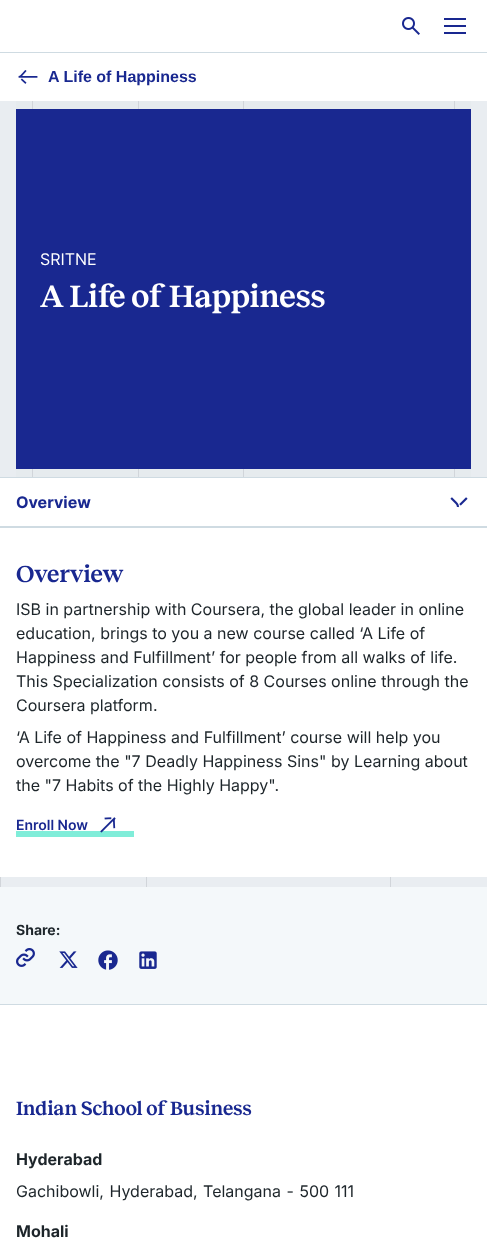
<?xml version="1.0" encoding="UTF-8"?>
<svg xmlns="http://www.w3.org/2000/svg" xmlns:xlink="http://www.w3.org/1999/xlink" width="487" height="1244">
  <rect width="100%" height="100%" fill="#ffffff" />
  <image x="402" y="17" width="18" height="18" xlink:href="image1.png" />
  <rect x="444" y="18" width="22" height="2" fill="#192890" />
  <rect x="444" y="25" width="22" height="2" fill="#192890" />
  <rect x="444" y="32" width="22" height="2" fill="#192890" />
  <rect y="101" width="487" height="376" fill="#e9edf1" />
  <rect y="52" width="487" height="1" fill="#cfdbe2" />
  <image x="18" y="70" width="20" height="14" xlink:href="image2.png" />
  <rect x="16" y="101" width="455" height="8" fill="#e6ebee" />
  <rect x="32" y="101" width="1" height="8" fill="#d1d5da" />
  <rect x="138" y="101" width="1" height="8" fill="#d1d5da" />
  <rect x="243" y="101" width="1" height="8" fill="#d1d5da" />
  <rect x="454" y="101" width="1" height="8" fill="#d1d5da" />
  <rect x="16" y="109" width="455" height="360" fill="#192890" />
  <rect x="16" y="469" width="455" height="8" fill="#e6ebee" />
  <rect x="32" y="469" width="1" height="8" fill="#d1d5da" />
  <rect x="138" y="469" width="1" height="8" fill="#d1d5da" />
  <rect x="243" y="469" width="1" height="8" fill="#d1d5da" />
  <rect x="454" y="469" width="1" height="8" fill="#d1d5da" />
  <rect y="477" width="487" height="1" fill="#cfdbe2" />
  <rect y="526" width="487" height="2" fill="#cfdbe2" />
  <image x="450" y="497" width="18" height="11" xlink:href="image3.png" />
  <rect x="16" y="831" width="118" height="6" fill="#80edd9" />
  <image x="100" y="817" width="16" height="16" xlink:href="image4.png" />
  <rect x="1" y="877" width="486" height="10" fill="#e9edf1" />
  <rect y="877" width="1" height="10" fill="#d1d5da" />
  <rect x="146" y="877" width="1" height="10" fill="#d1d5da" />
  <rect x="390" y="877" width="1" height="10" fill="#d1d5da" />
  <rect y="887" width="487" height="117" fill="#f4f8fa" />
  <image x="16" y="948" width="19" height="19" xlink:href="image5.png" />
  <image x="59" y="951" width="19" height="17" xlink:href="image6.png" />
  <image x="98" y="950" width="20" height="20" xlink:href="image7.png" />
  <image x="139" y="951" width="18" height="18" xlink:href="image8.png" />
  <rect y="1004" width="487" height="1" fill="#cfdbe2" />
  <text x="48" y="82" style="font-family: Liberation Sans; font-size: 16px; font-weight: bold; fill: #192890">A Life of Happiness</text>
  <text x="40" y="265" style="font-family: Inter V; font-size: 16px; fill: #ffffff">SRITNE</text>
  <text x="40" y="307" style="font-family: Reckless; font-size: 32px; font-weight: 600; fill: #ffffff">A Life of Happiness</text>
  <text x="16" y="508" style="font-family: Inter V; font-size: 16px; font-weight: bold; fill: #192890">Overview</text>
  <text x="16" y="582" style="font-family: Reckless; font-size: 24px; font-weight: 600; fill: #192890">Overview</text>
  <text x="16" y="615" style="font-family: Inter; font-size: 16px; fill: #1d252a">ISB in partnership with Coursera, the global leader in online</text>
  <text x="16" y="639" style="font-family: Inter; font-size: 16px; fill: #1d252a">education, brings to you a new course called ‘A Life of</text>
  <text x="16" y="663" style="font-family: Inter; font-size: 16px; fill: #1d252a">Happiness and Fulfillment’ for people from all walks of life.</text>
  <text x="16" y="687" style="font-family: Inter; font-size: 16px; fill: #1d252a">This Specialization consists of 8 Courses online through the</text>
  <text x="16" y="711" style="font-family: Inter; font-size: 16px; fill: #1d252a">Coursera platform.</text>
  <text x="16" y="743" style="font-family: Inter; font-size: 16px; fill: #1d252a">‘A Life of Happiness and Fulfillment’ course will help you</text>
  <text x="16" y="767" style="font-family: Inter; font-size: 16px; fill: #1d252a">overcome the "7 Deadly Happiness Sins" by Learning about</text>
  <text x="16" y="791" style="font-family: Inter; font-size: 16px; fill: #1d252a">the "7 Habits of the Highly Happy".</text>
  <text x="16" y="830" style="font-family: Inter V; font-size: 14px; font-weight: 600; fill: #192890">Enroll Now</text>
  <text x="16" y="935" style="font-family: Inter; font-size: 14px; font-weight: bold; fill: #1d252a">Share:</text>
  <text x="16" y="1115" style="font-family: Reckless; font-size: 20px; font-weight: 600; fill: #192890">Indian School of Business</text>
  <text x="16" y="1165" style="font-family: Inter; font-size: 16px; font-weight: bold; fill: #1d252a">Hyderabad</text>
  <text x="16" y="1197" word-spacing="1" style="font-family: Inter; font-size: 16px; fill: #1d252a">Gachibowli, Hyderabad, Telangana - 500 111</text>
  <text x="16" y="1237" style="font-family: Inter; font-size: 16px; font-weight: bold; fill: #1d252a">Mohali</text>
</svg>
